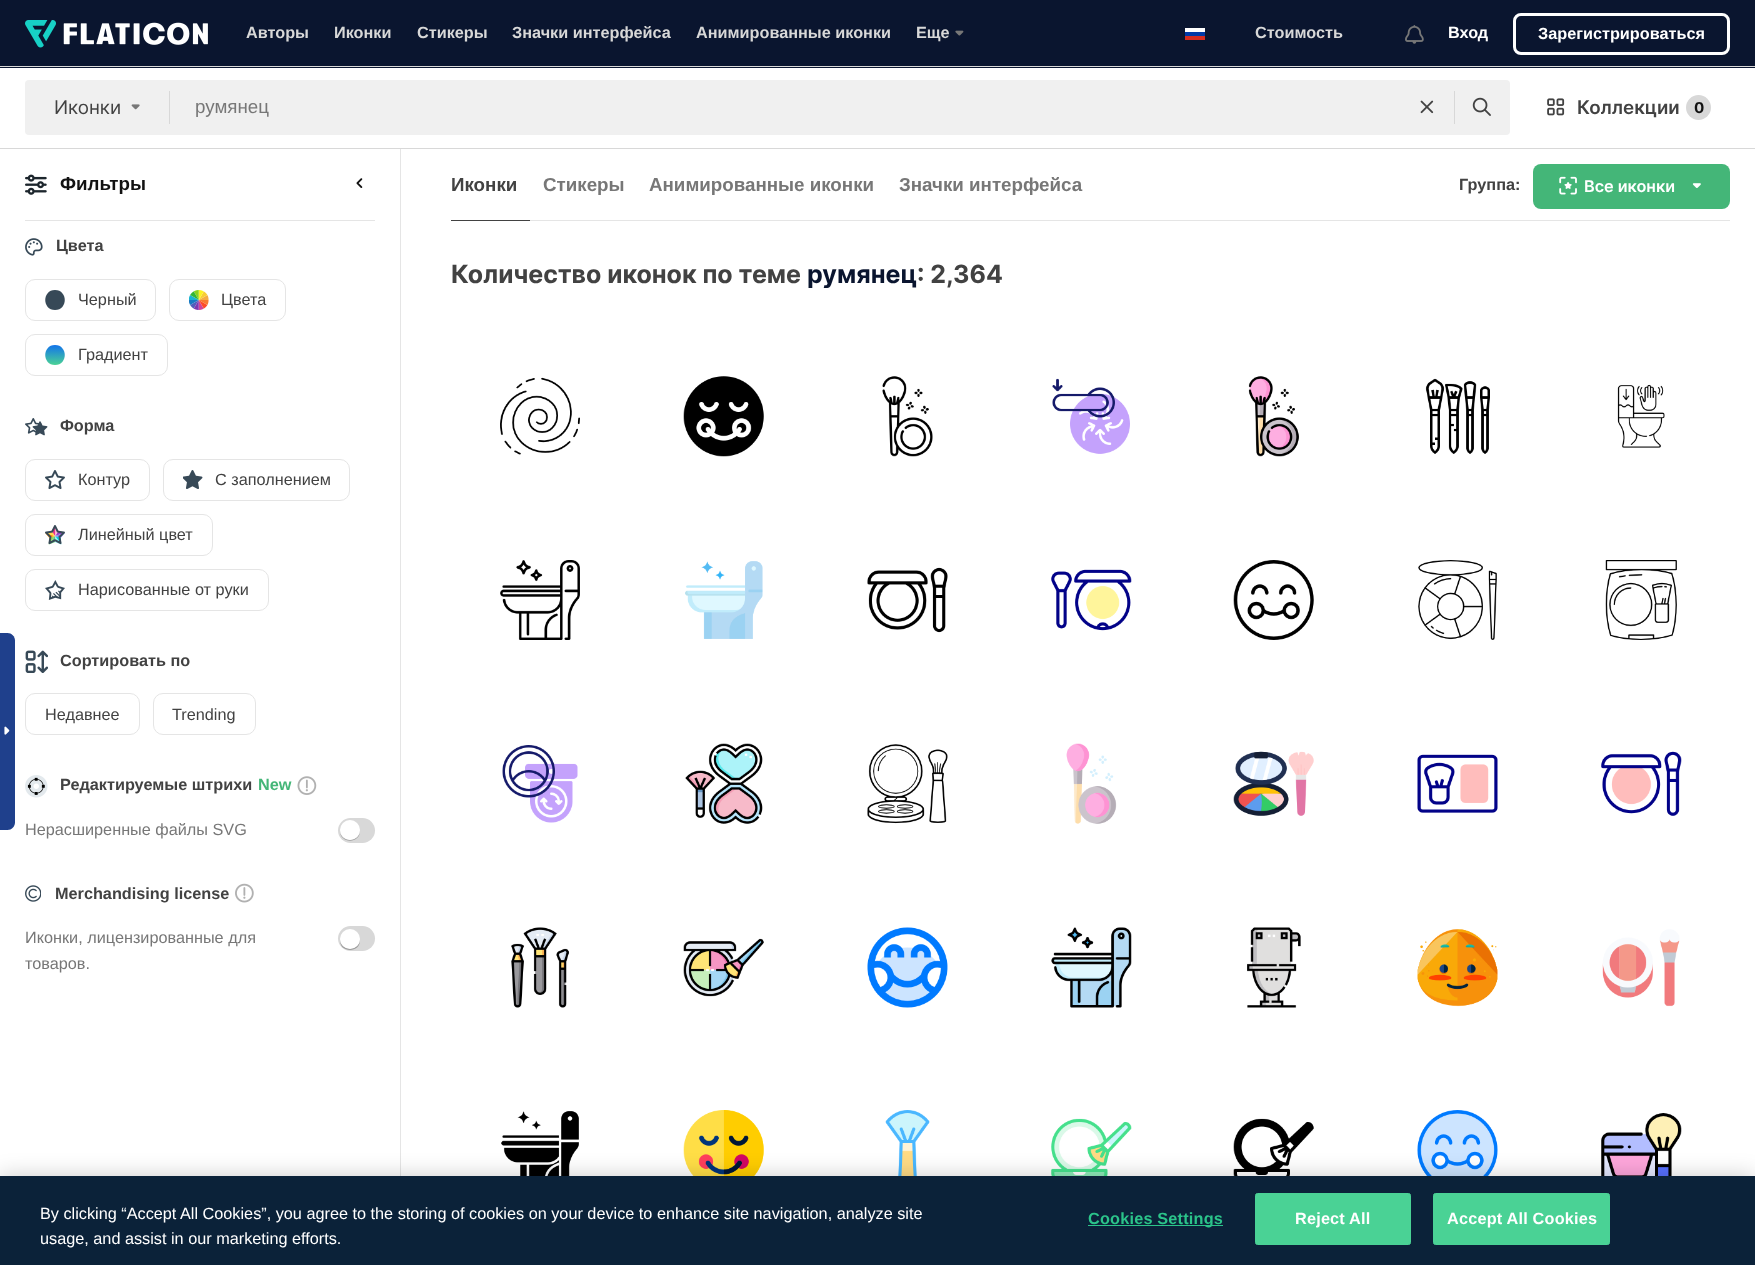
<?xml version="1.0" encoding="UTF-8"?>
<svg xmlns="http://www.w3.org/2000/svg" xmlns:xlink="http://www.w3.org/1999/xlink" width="1755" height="1265">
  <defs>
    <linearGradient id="g1" gradientUnits="userSpaceOnUse" x1="55" y1="345" x2="55" y2="365"><stop offset="0" stop-color="#1273eb" /><stop offset="1" stop-color="#4ad295" /></linearGradient>
  </defs>
  <rect width="100%" height="100%" fill="#ffffff" />
  <path d="M 0 633 h 7.5 c 4 0 7.5 3.5 7.5 7.5 v 182 c 0 4 -3.5 7.5 -7.5 7.5 h -7.5 z" fill="#1f408c" />
  <image x="4" y="726" width="6" height="9" xlink:href="image1.png" />
  <rect width="1755" height="68" fill="#0a152f" />
  <image x="25" y="20" width="183" height="28" xlink:href="image2.png" />
  <image x="955" y="30" width="9" height="6" xlink:href="image3.png" />
  <rect x="1185" y="28" width="20" height="4" fill="#ffffff" />
  <rect x="1185" y="36" width="20" height="4" fill="#d52b1e" />
  <rect x="1185" y="32" width="20" height="4" fill="#0039a6" />
  <image x="1405" y="25" width="19" height="19" xlink:href="image4.png" />
  <rect x="1514.5" y="14.5" width="214" height="39" rx="6.5" fill="none" stroke="#ffffff" stroke-width="3" />
  <rect x="400" y="148" width="1" height="1028" fill="#e5e5e5" />
  <rect x="-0.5" y="66.5" width="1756" height="82" fill="none" stroke="#d8d8d8" />
  <rect x="25" y="80" width="1485" height="55" rx="4" fill="#f0f0f0" />
  <image x="131" y="104" width="9" height="6" xlink:href="image5.png" />
  <rect x="169" y="91" width="1" height="33" fill="#d8d8d8" />
  <image x="1420" y="100" width="14" height="14" xlink:href="image6.png" />
  <rect x="1454" y="91" width="1" height="33" fill="#d8d8d8" />
  <image x="1472" y="97" width="19" height="19" xlink:href="image7.png" />
  <image x="1547" y="98" width="18" height="18" xlink:href="image8.png" />
  <circle cx="1698.5" cy="107.5" r="12.5" fill="#d8d8d8" />
  <rect x="25" y="220" width="350" height="1" fill="#e5e5e5" />
  <image x="25" y="174" width="22" height="21" xlink:href="image9.png" />
  <image x="356" y="178" width="7" height="10" xlink:href="image10.png" />
  <image x="25" y="238" width="18" height="18" xlink:href="image11.png" />
  <rect x="25.5" y="279.5" width="130" height="41" rx="9.5" fill="none" stroke="#e5e5e5" />
  <path d="M 55 310 c -13 0 -13 -20 0 -20 c 13 0 13 20 0 20 z" fill="#374957" fill-rule="evenodd" />
  <rect x="169.5" y="279.5" width="116" height="41" rx="9.5" fill="none" stroke="#e5e5e5" />
  <image x="189" y="290" width="20" height="20" xlink:href="image12.png" />
  <rect x="25.5" y="334.5" width="142" height="41" rx="9.5" fill="none" stroke="#e5e5e5" />
  <path d="M 55 365 c -13 0 -13 -20 0 -20 c 13 0 13 20 0 20 z" fill="url(#g1)" fill-rule="evenodd" />
  <image x="25" y="418" width="23" height="18" xlink:href="image13.png" />
  <rect x="25.5" y="459.5" width="124" height="41" rx="9.5" fill="none" stroke="#e5e5e5" />
  <image x="45" y="470" width="20" height="20" xlink:href="image14.png" />
  <rect x="163.5" y="459.5" width="186" height="41" rx="9.5" fill="none" stroke="#e5e5e5" />
  <image x="183" y="470" width="20" height="19" xlink:href="image15.png" />
  <rect x="25.5" y="514.5" width="187" height="41" rx="9.5" fill="none" stroke="#e5e5e5" />
  <image x="45" y="525" width="20" height="20" xlink:href="image16.png" />
  <rect x="25.5" y="569.5" width="243" height="41" rx="9.5" fill="none" stroke="#e5e5e5" />
  <image x="45" y="580" width="20" height="20" xlink:href="image17.png" />
  <image x="25" y="650" width="23" height="23" xlink:href="image18.png" />
  <rect x="25.5" y="693.5" width="114" height="41" rx="9.5" fill="none" stroke="#e5e5e5" />
  <rect x="153.5" y="693.5" width="102" height="41" rx="9.5" fill="none" stroke="#e5e5e5" />
  <image x="25" y="775" width="23" height="23" xlink:href="image19.png" />
  <image x="297" y="776" width="20" height="19" xlink:href="image20.png" />
  <rect x="338" y="818" width="37" height="25" rx="12.5" fill="#d8d8d8" />
  <path d="M 360 830.5 c -0.5 12.5 -19.5 12.5 -20 0 c -0.5 13.5 20.5 13.5 20 0 z" fill="#9c9c9c" />
  <circle cx="350" cy="830" r="10" fill="#ffffff" />
  <image x="25" y="885" width="16" height="17" xlink:href="image21.png" />
  <image x="235" y="883" width="19" height="20" xlink:href="image22.png" />
  <rect x="338" y="926" width="37" height="25" rx="12.5" fill="#d8d8d8" />
  <path d="M 360 939.5 c -1 12 -19 12 -20 0 c -1 14 21 14 20 0 z" fill="#9c9c9c" />
  <circle cx="350" cy="939" r="10" fill="#ffffff" />
  <rect x="451" y="220" width="79" height="1" fill="#424242" />
  <rect x="1533" y="164" width="197" height="45" rx="8" fill="#44b678" />
  <image x="1559" y="176" width="18" height="19" xlink:href="image23.png" />
  <image x="1692" y="183" width="9" height="5" xlink:href="image24.png" />
  <rect x="530" y="220" width="1200" height="1" fill="#e5e5e5" />
  <image x="500" y="377" width="80" height="78" xlink:href="image25.png" />
  <image x="683" y="376" width="81" height="81" xlink:href="image26.png" />
  <image x="882" y="376" width="51" height="81" xlink:href="image27.png" />
  <image x="1052" y="378" width="78" height="76" xlink:href="image28.png" />
  <image x="1248" y="376" width="51" height="81" xlink:href="image29.png" />
  <image x="1425" y="378" width="65" height="76" xlink:href="image30.png" />
  <image x="1617" y="384" width="48" height="64" xlink:href="image31.png" />
  <image x="500" y="560" width="80" height="80" xlink:href="image32.png" />
  <image x="685" y="561" width="78" height="78" xlink:href="image33.png" />
  <image x="867" y="567" width="81" height="66" xlink:href="image34.png" />
  <image x="1051" y="569" width="81" height="62" xlink:href="image35.png" />
  <image x="1233" y="560" width="81" height="80" xlink:href="image36.png" />
  <image x="1418" y="560" width="79" height="80" xlink:href="image37.png" />
  <image x="1605" y="560" width="72" height="80" xlink:href="image38.png" />
  <image x="502" y="745" width="76" height="78" xlink:href="image39.png" />
  <image x="685" y="743" width="78" height="81" xlink:href="image40.png" />
  <image x="867" y="744" width="81" height="80" xlink:href="image41.png" />
  <image x="1066" y="743" width="51" height="81" xlink:href="image42.png" />
  <image x="1233" y="751" width="81" height="65" xlink:href="image43.png" />
  <image x="1417" y="754" width="81" height="59" xlink:href="image44.png" />
  <image x="1601" y="751" width="81" height="65" xlink:href="image45.png" />
  <image x="511" y="927" width="59" height="81" xlink:href="image46.png" />
  <image x="683" y="938" width="81" height="59" xlink:href="image47.png" />
  <image x="867" y="927" width="81" height="81" xlink:href="image48.png" />
  <image x="1051" y="927" width="81" height="81" xlink:href="image49.png" />
  <image x="1247" y="927" width="54" height="81" xlink:href="image50.png" />
  <image x="1417" y="929" width="81" height="78" xlink:href="image51.png" />
  <image x="1602" y="929" width="78" height="78" xlink:href="image52.png" />
  <image x="501" y="1111" width="78" height="65" xlink:href="image53.png" />
  <image x="683" y="1110" width="81" height="66" xlink:href="image54.png" />
  <image x="885" y="1110" width="45" height="66" xlink:href="image55.png" />
  <image x="1051" y="1118" width="81" height="58" xlink:href="image56.png" />
  <image x="1233" y="1118" width="81" height="58" xlink:href="image57.png" />
  <image x="1417" y="1110" width="81" height="66" xlink:href="image58.png" />
  <image x="1601" y="1113" width="81" height="63" xlink:href="image59.png" />
  <rect y="1176" width="1755" height="89" fill="#000000" fill-opacity="0.2" filter="blur(11px)" />
  <rect y="1176" width="1755" height="89" fill="#0b2239" />
  <rect x="1088" y="1225" width="135" height="1" fill="#2bc48a" />
  <rect x="1255.5" y="1193.5" width="155" height="51" rx="2" fill="#4ad295" stroke="#4ad295" />
  <rect x="1433.5" y="1193.5" width="176" height="51" rx="2" fill="#4ad295" stroke="#4ad295" />
  <text x="246" y="38" style="font-family: Liberation Sans; font-size: 16.25px; font-weight: bold; fill: #d8d8d8">Авторы</text>
  <text x="334" y="38" style="font-family: Liberation Sans; font-size: 16.25px; font-weight: bold; fill: #d8d8d8">Иконки</text>
  <text x="417" y="38" style="font-family: Liberation Sans; font-size: 16.25px; font-weight: bold; fill: #d8d8d8">Стикеры</text>
  <text x="512" y="38" style="font-family: Liberation Sans; font-size: 16.25px; font-weight: bold; fill: #d8d8d8">Значки интерфейса</text>
  <text x="696" y="38" style="font-family: Liberation Sans; font-size: 16.25px; font-weight: bold; fill: #d8d8d8">Анимированные иконки</text>
  <text x="916" y="38" style="font-family: Liberation Sans; font-size: 16.25px; font-weight: bold; fill: #d8d8d8">Еще</text>
  <text x="1255" y="38" style="font-family: Liberation Sans; font-size: 16.25px; font-weight: bold; fill: #d8d8d8">Стоимость</text>
  <text x="1448" y="38" style="font-family: Liberation Sans; font-size: 16.25px; font-weight: bold; fill: #ffffff">Вход</text>
  <text x="1538" y="39" style="font-family: Liberation Sans; font-size: 16.25px; font-weight: bold; fill: #ffffff">Зарегистрироваться</text>
  <text x="54" y="114" style="font-family: Inter; font-size: 18.75px; fill: #424242">Иконки</text>
  <text x="195" y="113" style="font-family: Liberation Sans; font-size: 18.75px; fill: #777777">румянец</text>
  <text x="1577" y="114" style="font-family: Inter; font-size: 18.75px; font-weight: 600; fill: #424242">Коллекции</text>
  <text x="1694" y="113" style="font-family: Inter; font-size: 15px; font-weight: bold; fill: #121212">0</text>
  <text x="60" y="190" style="font-family: Liberation Sans; font-size: 18.75px; font-weight: bold; fill: #121212">Фильтры</text>
  <text x="56" y="251" style="font-family: Liberation Sans; font-size: 16.25px; font-weight: bold; fill: #424242">Цвета</text>
  <text x="78" y="305" style="font-family: Liberation Sans; font-size: 16.25px; fill: #424242">Черный</text>
  <text x="221" y="305" style="font-family: Liberation Sans; font-size: 16.25px; fill: #424242">Цвета</text>
  <text x="78" y="360" style="font-family: Liberation Sans; font-size: 16.25px; fill: #424242">Градиент</text>
  <text x="60" y="431" style="font-family: Liberation Sans; font-size: 16.25px; font-weight: bold; fill: #424242">Форма</text>
  <text x="78" y="485" style="font-family: Liberation Sans; font-size: 16.25px; fill: #424242">Контур</text>
  <text x="215" y="485" style="font-family: Liberation Sans; font-size: 16.25px; fill: #424242">С заполнением</text>
  <text x="78" y="540" style="font-family: Liberation Sans; font-size: 16.25px; fill: #424242">Линейный цвет</text>
  <text x="78" y="595" style="font-family: Liberation Sans; font-size: 16.25px; fill: #424242">Нарисованные от руки</text>
  <text x="60" y="666" style="font-family: Liberation Sans; font-size: 16.25px; font-weight: bold; fill: #424242">Сортировать по</text>
  <text x="45" y="720" style="font-family: Liberation Sans; font-size: 16.25px; fill: #424242">Недавнее</text>
  <text x="172" y="720" style="font-family: Liberation Sans; font-size: 16.25px; fill: #424242">Trending</text>
  <text x="60" y="790" style="font-family: Liberation Sans; font-size: 16.25px; font-weight: bold; fill: #424242">Редактируемые штрихи</text>
  <text x="258" y="790" style="font-family: Liberation Sans; font-size: 16.25px; font-weight: bold; fill: #44b678">New</text>
  <text x="25" y="835" style="font-family: Liberation Sans; font-size: 16.25px; fill: #777777">Нерасширенные файлы SVG</text>
  <text x="55" y="899" style="font-family: Liberation Sans; font-size: 16.25px; font-weight: bold; fill: #424242">Merchandising license</text>
  <text x="25" y="943" style="font-family: Liberation Sans; font-size: 16.25px; fill: #777777">Иконки, лицензированные для</text>
  <text x="25" y="969" style="font-family: Liberation Sans; font-size: 16.25px; fill: #777777">товаров.</text>
  <text x="451" y="191" style="font-family: Liberation Sans; font-size: 18.75px; font-weight: bold; fill: #424242">Иконки</text>
  <text x="543" y="191" style="font-family: Liberation Sans; font-size: 18.75px; font-weight: bold; fill: #777777">Стикеры</text>
  <text x="649" y="191" style="font-family: Liberation Sans; font-size: 18.75px; font-weight: bold; fill: #777777">Анимированные иконки</text>
  <text x="899" y="191" style="font-family: Liberation Sans; font-size: 18.75px; font-weight: bold; fill: #777777">Значки интерфейса</text>
  <text x="1459" y="190" style="font-family: Liberation Sans; font-size: 16.25px; font-weight: bold; fill: #424242">Группа:</text>
  <text x="1584" y="192" style="font-family: Inter; font-size: 16.25px; font-weight: 600; fill: #ffffff">Все иконки</text>
  <text x="451" y="283" style="font-family: Inter; font-size: 25px; font-weight: bold; fill: #424242">Количество иконок по теме</text>
  <text x="807" y="283" style="font-family: Inter; font-size: 25px; font-weight: bold; fill: #0a152f">румянец</text>
  <text x="917" y="283" style="font-family: Inter; font-size: 25px; font-weight: bold; fill: #424242">: 2,364</text>
  <text x="40" y="1219" style="font-family: Liberation Sans; font-size: 16.25px; fill: #ffffff">By clicking “Accept All Cookies”, you agree to the storing of cookies on your device to enhance site navigation, analyze site</text>
  <text x="40" y="1244" style="font-family: Liberation Sans; font-size: 16.25px; fill: #ffffff">usage, and assist in our marketing efforts.</text>
  <text x="1088" y="1224" style="font-family: Liberation Sans; font-size: 16.25px; font-weight: bold; letter-spacing: 0.2px; fill: #2bc48a">Cookies Settings</text>
  <text x="1295" y="1224" style="font-family: Liberation Sans; font-size: 16.25px; font-weight: bold; letter-spacing: 0.2px; fill: #ffffff">Reject All</text>
  <text x="1447" y="1224" style="font-family: Liberation Sans; font-size: 16.25px; font-weight: bold; letter-spacing: 0.2px; fill: #ffffff">Accept All Cookies</text>
</svg>
